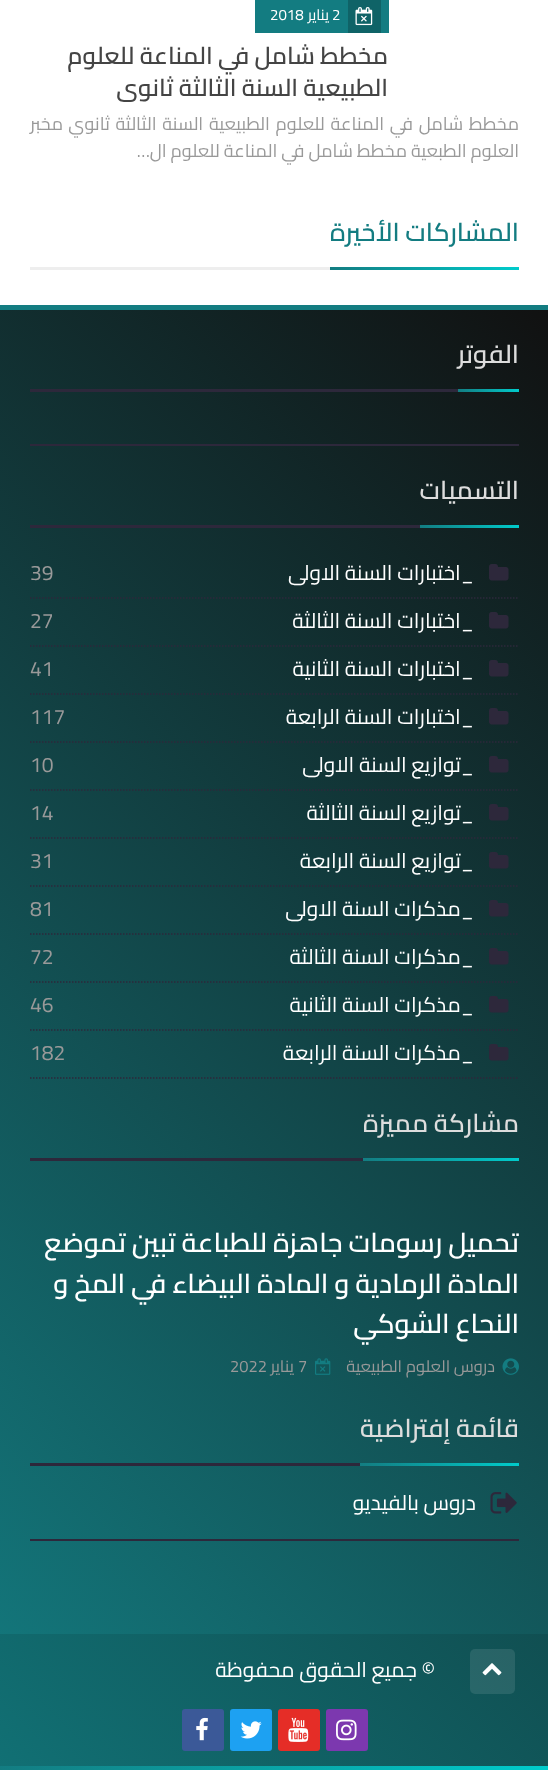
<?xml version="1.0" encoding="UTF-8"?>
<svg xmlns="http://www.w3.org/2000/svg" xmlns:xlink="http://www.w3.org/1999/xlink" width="548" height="1770">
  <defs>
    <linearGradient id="g1" gradientUnits="userSpaceOnUse" x1="377" y1="317" x2="473" y2="221"><stop offset="0" stop-color="#137c81" /><stop offset="1" stop-color="#00cccc" /></linearGradient>
    <linearGradient id="g2" gradientUnits="userSpaceOnUse" x1="-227" y1="1539" x2="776" y2="536"><stop offset="0" stop-color="#137c81" /><stop offset="1" stop-color="#111111" /></linearGradient>
    <linearGradient id="g3" gradientUnits="userSpaceOnUse" x1="-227" y1="1539" x2="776" y2="536"><stop offset="0" stop-color="#117074" /><stop offset="1" stop-color="#0f0f0f" /></linearGradient>
    <linearGradient id="g4" gradientUnits="userSpaceOnUse" x1="472" y1="406" x2="504" y2="374"><stop offset="0" stop-color="#137c81" /><stop offset="1" stop-color="#00cccc" /></linearGradient>
    <linearGradient id="g5" gradientUnits="userSpaceOnUse" x1="444" y1="552" x2="495" y2="501"><stop offset="0" stop-color="#137c81" /><stop offset="1" stop-color="#00cccc" /></linearGradient>
    <linearGradient id="g6" gradientUnits="userSpaceOnUse" x1="401" y1="1199" x2="481" y2="1120"><stop offset="0" stop-color="#137c81" /><stop offset="1" stop-color="#00cccc" /></linearGradient>
    <linearGradient id="g7" gradientUnits="userSpaceOnUse" x1="399" y1="1505" x2="480" y2="1424"><stop offset="0" stop-color="#137c81" /><stop offset="1" stop-color="#00cccc" /></linearGradient>
    <linearGradient id="g8" gradientUnits="userSpaceOnUse" x1="136" y1="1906" x2="413" y2="1629"><stop offset="0" stop-color="#137c81" /><stop offset="1" stop-color="#00cccc" /></linearGradient>
    <clipPath id="clip1"><rect x="30" y="41" width="359" height="63" /></clipPath>
  </defs>
  <rect width="100%" height="100%" fill="#ffffff" />
  <rect x="255" width="134" height="33" fill="#137c81" />
  <rect x="348" width="33" height="33" fill="#0f6367" />
  <image x="355" y="7" width="18" height="19" xlink:href="image1.png" />
  <rect x="30" y="267" width="300" height="3" fill="#eeeeee" />
  <rect x="330" y="267" width="189" height="3" fill="url(#g1)" />
  <rect y="310" width="548" height="1324" fill="url(#g2)" />
  <rect y="1634" width="548" height="132" fill="url(#g3)" />
  <rect y="305" width="548" height="5" fill="#137c81" />
  <rect x="30" y="444" width="489" height="2" fill="#2d283b" />
  <rect x="30" y="389" width="428" height="3" fill="#2d283b" />
  <rect x="458" y="389" width="61" height="3" fill="url(#g4)" />
  <rect x="30" y="525" width="390" height="3" fill="#2d283b" />
  <rect x="420" y="525" width="99" height="3" fill="url(#g5)" />
  <path d="M 30 598 h 489" fill="none" stroke="#2d283b" stroke-width="1.5" stroke-dasharray="1.5 1.5" />
  <image x="489" y="564" width="20" height="17" xlink:href="image2.png" />
  <path d="M 30 646 h 489" fill="none" stroke="#2d283b" stroke-width="1.5" stroke-dasharray="1.5 1.5" />
  <image x="489" y="612" width="20" height="17" xlink:href="image3.png" />
  <path d="M 30 694 h 489" fill="none" stroke="#2d283b" stroke-width="1.5" stroke-dasharray="1.5 1.5" />
  <image x="489" y="660" width="20" height="17" xlink:href="image4.png" />
  <path d="M 30 742 h 489" fill="none" stroke="#2d283b" stroke-width="1.5" stroke-dasharray="1.5 1.5" />
  <image x="489" y="708" width="20" height="17" xlink:href="image5.png" />
  <path d="M 30 790 h 489" fill="none" stroke="#2d283b" stroke-width="1.5" stroke-dasharray="1.5 1.5" />
  <image x="489" y="756" width="20" height="17" xlink:href="image6.png" />
  <path d="M 30 838 h 489" fill="none" stroke="#2d283b" stroke-width="1.5" stroke-dasharray="1.5 1.5" />
  <image x="489" y="804" width="20" height="17" xlink:href="image7.png" />
  <path d="M 30 886 h 489" fill="none" stroke="#2d283b" stroke-width="1.5" stroke-dasharray="1.5 1.5" />
  <image x="489" y="852" width="20" height="17" xlink:href="image8.png" />
  <path d="M 30 934 h 489" fill="none" stroke="#2d283b" stroke-width="1.5" stroke-dasharray="1.5 1.5" />
  <image x="489" y="900" width="20" height="17" xlink:href="image9.png" />
  <path d="M 30 982 h 489" fill="none" stroke="#2d283b" stroke-width="1.5" stroke-dasharray="1.5 1.5" />
  <image x="489" y="948" width="20" height="17" xlink:href="image10.png" />
  <path d="M 30 1030 h 489" fill="none" stroke="#2d283b" stroke-width="1.5" stroke-dasharray="1.5 1.5" />
  <image x="489" y="996" width="20" height="17" xlink:href="image11.png" />
  <path d="M 30 1078 h 489" fill="none" stroke="#2d283b" stroke-width="1.5" stroke-dasharray="1.5 1.5" />
  <image x="489" y="1044" width="20" height="17" xlink:href="image12.png" />
  <rect x="30" y="1158" width="333" height="3" fill="#2d283b" />
  <rect x="363" y="1158" width="156" height="3" fill="url(#g6)" />
  <image x="502" y="1358" width="17" height="17" xlink:href="image13.png" />
  <image x="315" y="1358" width="16" height="17" xlink:href="image14.png" />
  <rect x="30" y="1463" width="330" height="3" fill="#2d283b" />
  <rect x="360" y="1463" width="159" height="3" fill="url(#g7)" />
  <rect x="30" y="1539" width="489" height="2" fill="#2d283b" />
  <image x="490" y="1492" width="27" height="22" xlink:href="image15.png" />
  <rect x="470" y="1649" width="45" height="45" rx="5" fill="#ffffff" fill-opacity="0.1" />
  <image x="482" y="1663" width="20" height="13" xlink:href="image16.png" />
  <rect x="326" y="1709" width="42" height="42" rx="3" fill="#7c38af" />
  <image x="336" y="1719" width="21" height="22" xlink:href="image17.png" />
  <rect x="278" y="1709" width="42" height="42" rx="3" fill="#e52d27" />
  <image x="288" y="1717" width="21" height="25" xlink:href="image18.png" />
  <rect x="230" y="1709" width="42" height="42" rx="3" fill="#1da1f2" />
  <image x="240" y="1721" width="22" height="18" xlink:href="image19.png" />
  <rect x="182" y="1709" width="42" height="42" rx="3" fill="#3b5998" />
  <image x="196" y="1717" width="12" height="24" xlink:href="image20.png" />
  <rect y="1766" width="548" height="4" fill="url(#g8)" />
  <text x="332" y="20" style="font-family: Cairo; font-size: 15px; fill: #ffffff">2</text>
  <text x="329" y="20" style="font-family: Cairo; font-size: 15px; direction: rtl; fill: #ffffff">يناير</text>
  <text x="270" y="20" style="font-family: Cairo; font-size: 15px; fill: #ffffff">2018</text>
  <text x="388" y="64" style="font-family: Cairo; font-size: 24px; font-weight: 600; direction: rtl; fill: #444444">مخطط شامل في المناعة للعلوم</text>
  <g clip-path="url(#clip1)">
    <text x="388" y="96" style="font-family: Cairo; font-size: 24px; font-weight: 600; direction: rtl; fill: #444444">الطبيعية السنة الثالثة ثانوي</text>
  </g>
  <text x="519" y="130" word-spacing="1.75" style="font-family: Cairo; font-size: 18px; direction: rtl; fill: #999999">مخطط شامل في المناعة للعلوم الطبيعية السنة الثالثة ثانوي</text>
  <text x="63" y="130" style="font-family: Cairo; font-size: 18px; direction: rtl; fill: #999999">مخبر</text>
  <text x="519" y="157" style="font-family: Cairo; font-size: 18px; direction: rtl; fill: #999999">العلوم الطبعية</text>
  <text x="407" y="157" style="font-family: Cairo; font-size: 18px; direction: rtl; fill: #999999">مخطط شامل في المناعة للعلوم ال…</text>
  <text x="519" y="241" style="font-family: Cairo; font-size: 25.5px; font-weight: 600; direction: rtl; fill: #137c81">المشاركات الأخيرة</text>
  <text x="519" y="363" style="font-family: Cairo; font-size: 25.5px; font-weight: 600; direction: rtl; fill: #dddddd">الفوتر</text>
  <text x="519" y="499" style="font-family: Cairo; font-size: 25.5px; font-weight: 600; direction: rtl; fill: #dddddd">التسميات</text>
  <text x="474" y="580" style="font-family: Cairo; font-size: 21px; direction: rtl; fill: #ffffff">_اختبارات السنة الاولى</text>
  <text x="30" y="580" style="font-family: Cairo; font-size: 21px; fill: #999999">39</text>
  <text x="474" y="628" style="font-family: Cairo; font-size: 21px; direction: rtl; fill: #ffffff">_اختبارات السنة الثالثة</text>
  <text x="30" y="628" style="font-family: Cairo; font-size: 21px; fill: #999999">27</text>
  <text x="474" y="676" style="font-family: Cairo; font-size: 21px; direction: rtl; fill: #ffffff">_اختبارات السنة الثانية</text>
  <text x="30" y="676" style="font-family: Cairo; font-size: 21px; fill: #999999">41</text>
  <text x="474" y="724" style="font-family: Cairo; font-size: 21px; direction: rtl; fill: #ffffff">_اختبارات السنة الرابعة</text>
  <text x="30" y="724" style="font-family: Cairo; font-size: 21px; fill: #999999">117</text>
  <text x="474" y="772" style="font-family: Cairo; font-size: 21px; direction: rtl; fill: #ffffff">_توازيع السنة الاولى</text>
  <text x="30" y="772" style="font-family: Cairo; font-size: 21px; fill: #999999">10</text>
  <text x="474" y="820" style="font-family: Cairo; font-size: 21px; direction: rtl; fill: #ffffff">_توازيع السنة الثالثة</text>
  <text x="30" y="820" style="font-family: Cairo; font-size: 21px; fill: #999999">14</text>
  <text x="474" y="868" style="font-family: Cairo; font-size: 21px; direction: rtl; fill: #ffffff">_توازيع السنة الرابعة</text>
  <text x="30" y="868" style="font-family: Cairo; font-size: 21px; fill: #999999">31</text>
  <text x="474" y="916" style="font-family: Cairo; font-size: 21px; direction: rtl; fill: #ffffff">_مذكرات السنة الاولى</text>
  <text x="30" y="916" style="font-family: Cairo; font-size: 21px; fill: #999999">81</text>
  <text x="474" y="964" style="font-family: Cairo; font-size: 21px; direction: rtl; fill: #ffffff">_مذكرات السنة الثالثة</text>
  <text x="30" y="964" style="font-family: Cairo; font-size: 21px; fill: #999999">72</text>
  <text x="474" y="1012" style="font-family: Cairo; font-size: 21px; direction: rtl; fill: #ffffff">_مذكرات السنة الثانية</text>
  <text x="30" y="1012" style="font-family: Cairo; font-size: 21px; fill: #999999">46</text>
  <text x="474" y="1060" style="font-family: Cairo; font-size: 21px; direction: rtl; fill: #ffffff">_مذكرات السنة الرابعة</text>
  <text x="30" y="1060" style="font-family: Cairo; font-size: 21px; fill: #999999">182</text>
  <text x="519" y="1132" style="font-family: Cairo; font-size: 25.5px; font-weight: 600; direction: rtl; fill: #dddddd">مشاركة مميزة</text>
  <text x="519" y="1252" style="font-family: Cairo; font-size: 27px; font-weight: 600; direction: rtl; fill: #ffffff">تحميل رسومات جاهزة للطباعة تبين تموضع</text>
  <text x="519" y="1293" style="font-family: Cairo; font-size: 27px; font-weight: 600; direction: rtl; fill: #ffffff">المادة الرمادية و المادة البيضاء في المخ و</text>
  <text x="519" y="1333" style="font-family: Cairo; font-size: 27px; font-weight: 600; direction: rtl; fill: #ffffff">النحاع الشوكي</text>
  <text x="495" y="1372" style="font-family: Cairo; font-size: 16.5px; direction: rtl; fill: #999999">دروس العلوم الطبيعية</text>
  <text x="298" y="1372" style="font-family: Cairo; font-size: 16.5px; fill: #999999">7</text>
  <text x="294" y="1372" style="font-family: Cairo; font-size: 16.5px; direction: rtl; fill: #999999">يناير</text>
  <text x="230" y="1372" style="font-family: Cairo; font-size: 16.5px; fill: #999999">2022</text>
  <text x="519" y="1437" style="font-family: Cairo; font-size: 25.5px; font-weight: 600; direction: rtl; fill: #dddddd">قائمة إفتراضية</text>
  <text x="476" y="1510" style="font-family: Cairo; font-size: 21px; direction: rtl; fill: #ffffff">دروس بالفيديو</text>
  <text x="435" y="1677" style="font-family: Cairo; font-size: 21px; direction: rtl; fill: #ffffff">© جميع الحقوق محفوظة</text>
</svg>
